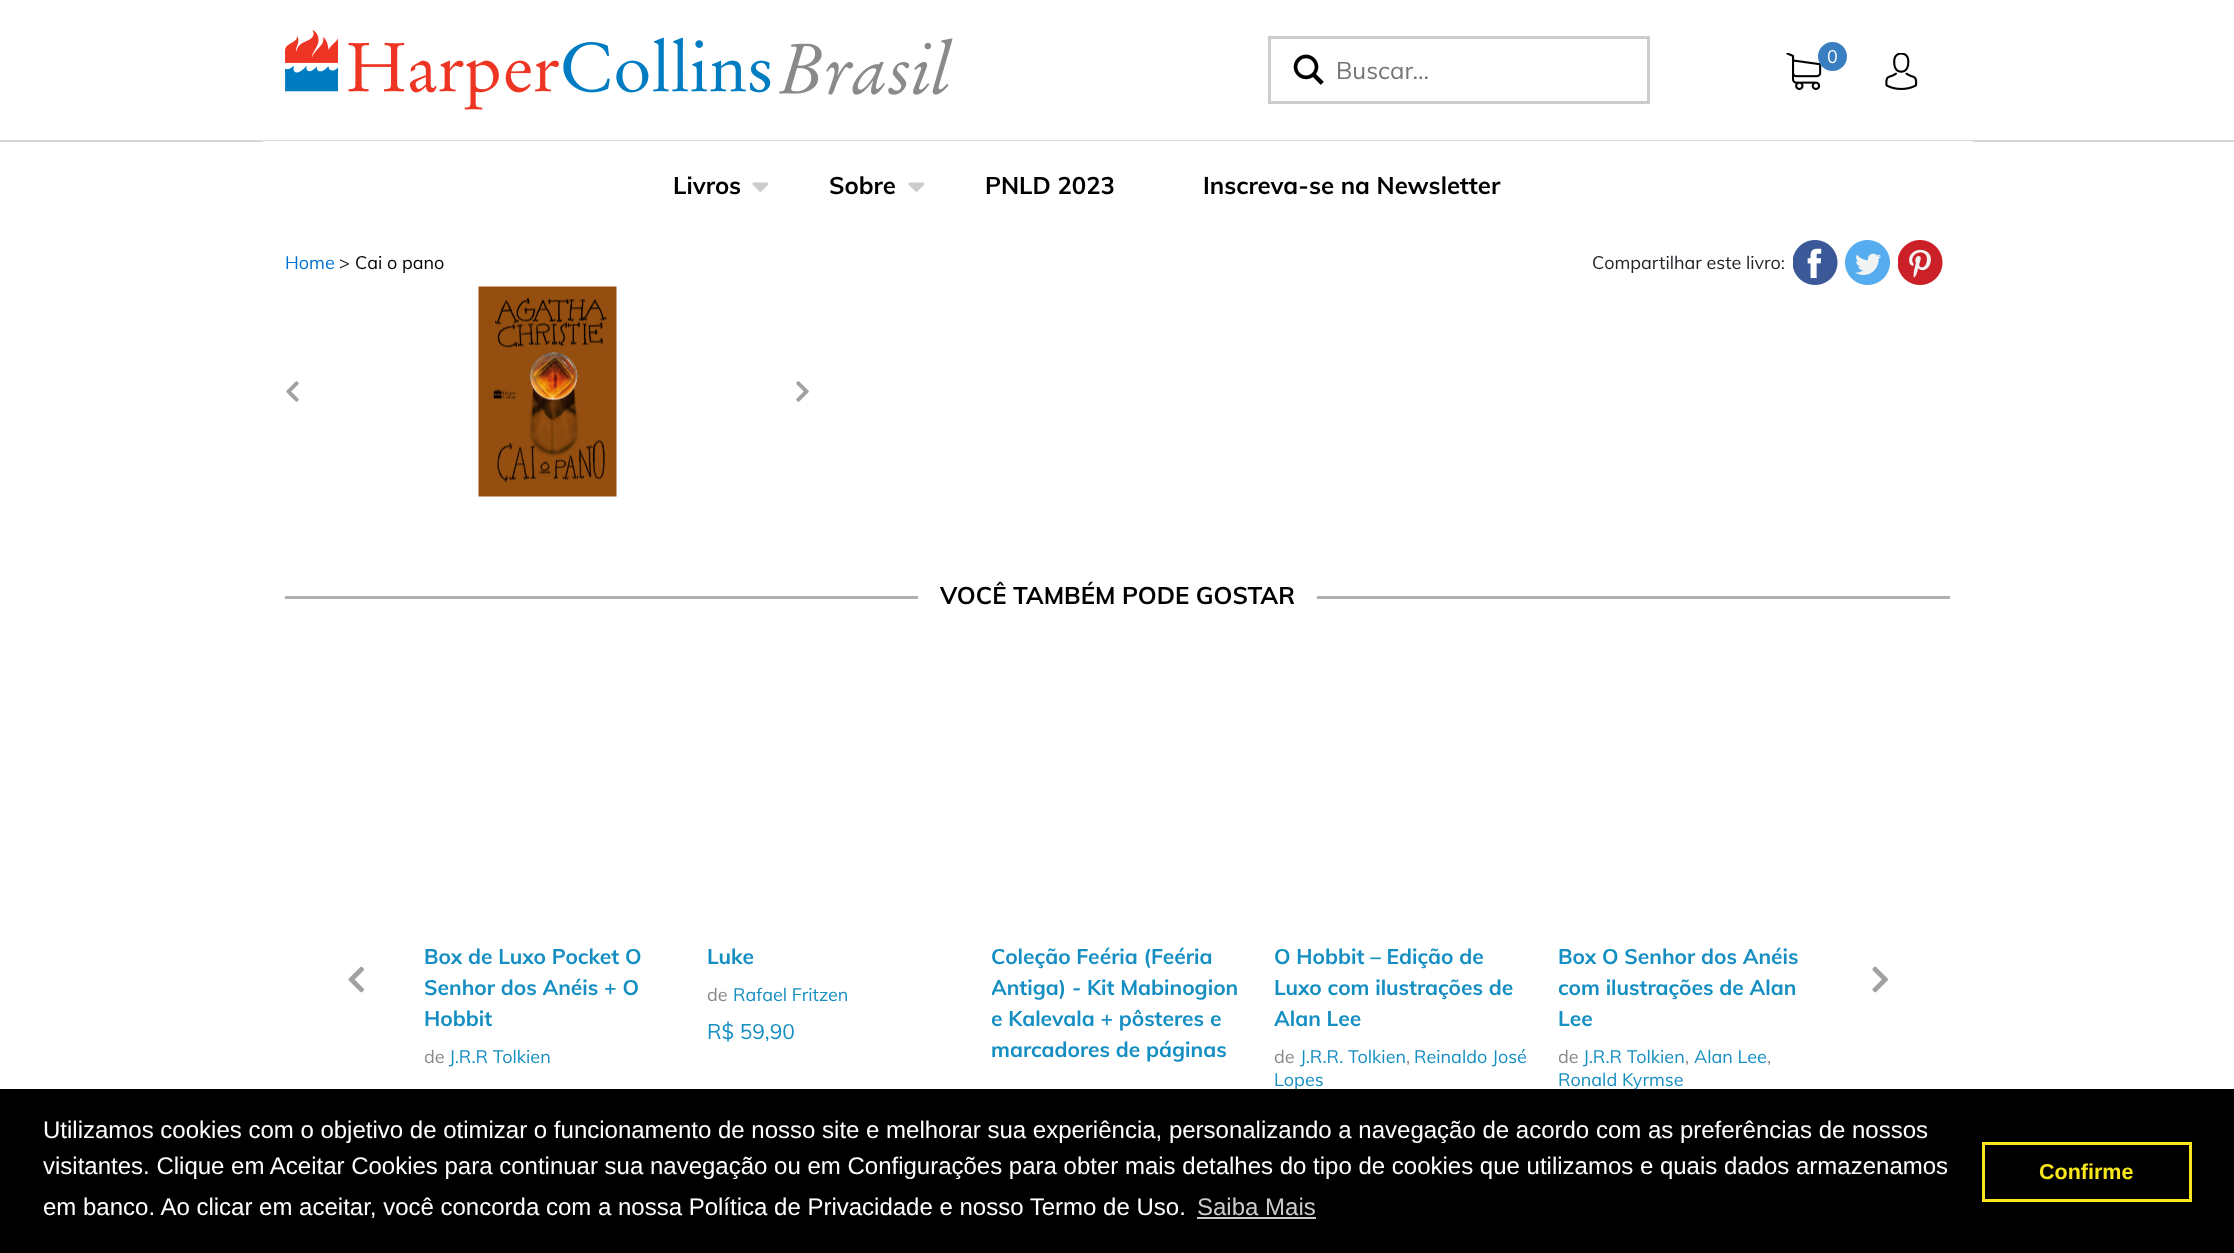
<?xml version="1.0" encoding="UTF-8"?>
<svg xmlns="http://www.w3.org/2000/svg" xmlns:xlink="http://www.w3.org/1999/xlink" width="2234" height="1253">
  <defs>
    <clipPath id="clip1"><rect x="425" y="1046" width="253" height="22" /></clipPath>
    <clipPath id="clip2"><rect x="992" y="941" width="253" height="124" /></clipPath>
    <clipPath id="clip3"><rect x="1559" y="941" width="253" height="93" /></clipPath>
    <clipPath id="clip4"><rect x="1559" y="1046" width="253" height="46" /></clipPath>
  </defs>
  <rect width="100%" height="100%" fill="#ffffff" />
  <rect y="140" width="2234" height="2" fill="#d7d7d7" />
  <image x="285" y="30" width="668" height="80" xlink:href="image1.png" />
  <image x="1786" y="53" width="36" height="37" xlink:href="image2.png" />
  <circle cx="1832.5" cy="56.5" r="14.5" fill="#397ec0" />
  <image x="1885" y="53" width="33" height="37" xlink:href="image3.png" />
  <rect x="1269.5" y="37.5" width="379" height="65" fill="none" stroke="#cccccc" stroke-width="3" />
  <image x="1293" y="54" width="31" height="31" xlink:href="image4.png" />
  <rect x="263" y="141" width="1710" height="1" fill="#ffffff" />
  <image x="752" y="182" width="17" height="10" xlink:href="image5.png" />
  <image x="908" y="182" width="17" height="10" xlink:href="image5.png" />
  <image x="1793" y="240" width="45" height="45" xlink:href="image6.png" />
  <image x="1845" y="240" width="45" height="45" xlink:href="image7.png" />
  <image x="1898" y="240" width="45" height="45" xlink:href="image8.png" />
  <image x="286" y="381" width="13" height="21" xlink:href="image9.png" />
  <image x="478" y="286" width="139" height="211" xlink:href="image10.png" />
  <image x="796" y="381" width="13" height="21" xlink:href="image11.png" />
  <rect x="285" y="596" width="633" height="3" fill="#afb1b3" />
  <rect x="1317" y="596" width="633" height="3" fill="#afb1b3" />
  <image x="348" y="966" width="16" height="27" xlink:href="image12.png" />
  <image x="1872" y="966" width="16" height="27" xlink:href="image13.png" />
  <text x="1827" y="63" style="font-family: Muli; font-size: 18px; fill: #ffffff">0</text>
  <text x="1336" y="79" style="font-family: Muli; font-size: 24px; fill: #757575">Buscar...</text>
  <text x="673" y="194" style="font-family: Muli; font-size: 24px; font-weight: bold; fill: #000000">Livros</text>
  <text x="829" y="194" style="font-family: Muli; font-size: 24px; font-weight: bold; fill: #000000">Sobre</text>
  <text x="985" y="194" style="font-family: Muli; font-size: 24px; font-weight: bold; fill: #000000">PNLD 2023</text>
  <text x="1203" y="194" style="font-family: Muli; font-size: 24px; font-weight: bold; fill: #000000">Inscreva-se na Newsletter</text>
  <text x="285" y="269" style="font-family: Muli; font-size: 18px; fill: #0071ce">Home</text>
  <text x="339" y="269" style="font-family: Muli; font-size: 18px; fill: #212529">&gt;</text>
  <text x="355" y="269" style="font-family: Muli; font-size: 18px; fill: #000000">Cai o pano</text>
  <text x="1592" y="269" style="font-family: Muli; font-size: 18px; fill: #212529">Compartilhar este livro:</text>
  <text x="940" y="604" style="font-family: Muli; font-size: 24px; font-weight: bold; fill: #000000">VOCÊ TAMBÉM PODE GOSTAR</text>
  <text x="424" y="964" style="font-family: Muli; font-size: 21px; font-weight: bold; fill: #158ec2">Box de Luxo Pocket O</text>
  <text x="424" y="995" style="font-family: Muli; font-size: 21px; font-weight: bold; fill: #158ec2">Senhor dos Anéis + O</text>
  <text x="424" y="1026" style="font-family: Muli; font-size: 21px; font-weight: bold; fill: #158ec2">Hobbit</text>
  <g clip-path="url(#clip1)">
    <text x="424" y="1063" style="font-family: Muli; font-size: 18px; fill: #888888">de</text>
  </g>
  <text x="449" y="1063" style="font-family: Muli; font-size: 18px; fill: #158ec2">J.R.R Tolkien</text>
  <text x="707" y="964" style="font-family: Muli; font-size: 21px; font-weight: bold; fill: #158ec2">Luke</text>
  <text x="707" y="1001" style="font-family: Muli; font-size: 18px; fill: #888888">de</text>
  <text x="733" y="1001" style="font-family: Muli; font-size: 18px; fill: #158ec2">Rafael Fritzen</text>
  <text x="707" y="1039" style="font-family: Muli; font-size: 21px; fill: #158ec2">R$ 59,90</text>
  <text x="991" y="964" style="font-family: Muli; font-size: 21px; font-weight: bold; fill: #158ec2">Coleção Feéria (Feéria</text>
  <g clip-path="url(#clip2)">
    <text x="991" y="995" style="font-family: Muli; font-size: 21px; font-weight: bold; fill: #158ec2">Antiga) - Kit Mabinogion</text>
    <text x="991" y="1026" style="font-family: Muli; font-size: 21px; font-weight: bold; fill: #158ec2">e Kalevala + pôsteres e</text>
  </g>
  <text x="991" y="1057" style="font-family: Muli; font-size: 21px; font-weight: bold; fill: #158ec2">marcadores de páginas</text>
  <text x="1274" y="964" style="font-family: Muli; font-size: 21px; font-weight: bold; fill: #158ec2">O Hobbit – Edição de</text>
  <text x="1274" y="995" style="font-family: Muli; font-size: 21px; font-weight: bold; fill: #158ec2">Luxo com ilustrações de</text>
  <text x="1274" y="1026" style="font-family: Muli; font-size: 21px; font-weight: bold; fill: #158ec2">Alan Lee</text>
  <text x="1274" y="1063" style="font-family: Muli; font-size: 18px; fill: #888888">de</text>
  <text x="1300" y="1063" style="font-family: Muli; font-size: 18px; fill: #158ec2">J.R.R. Tolkien</text>
  <text x="1406" y="1063" style="font-family: Muli; font-size: 18px; fill: #888888">,</text>
  <text x="1414" y="1063" style="font-family: Muli; font-size: 18px; fill: #158ec2">Reinaldo José</text>
  <text x="1274" y="1086" style="font-family: Muli; font-size: 18px; fill: #158ec2">Lopes</text>
  <text x="1558" y="964" style="font-family: Muli; font-size: 21px; font-weight: bold; fill: #158ec2">Box O Senhor dos Anéis</text>
  <g clip-path="url(#clip3)">
    <text x="1558" y="995" style="font-family: Muli; font-size: 21px; font-weight: bold; fill: #158ec2">com ilustrações de Alan</text>
  </g>
  <text x="1558" y="1026" style="font-family: Muli; font-size: 21px; font-weight: bold; fill: #158ec2">Lee</text>
  <g clip-path="url(#clip4)">
    <text x="1558" y="1063" style="font-family: Muli; font-size: 18px; fill: #888888">de</text>
  </g>
  <text x="1583" y="1063" style="font-family: Muli; font-size: 18px; fill: #158ec2">J.R.R Tolkien</text>
  <text x="1685" y="1063" style="font-family: Muli; font-size: 18px; fill: #888888">,</text>
  <text x="1694" y="1063" style="font-family: Muli; font-size: 18px; fill: #158ec2">Alan Lee</text>
  <text x="1767" y="1063" style="font-family: Muli; font-size: 18px; fill: #888888">,</text>
  <text x="1558" y="1086" style="font-family: Muli; font-size: 18px; fill: #158ec2">Ronald Kyrmse</text>
  <rect y="1089" width="2234" height="164" fill="#000000" />
  <text x="43" y="1138" style="font-family: Liberation Sans; font-size: 24px; fill: #ffffff">Utilizamos cookies com o objetivo de otimizar o funcionamento de nosso site e melhorar sua experiência, personalizando a navegação de acordo com as preferências de nossos</text>
  <text x="43" y="1174" style="font-family: Liberation Sans; font-size: 24px; fill: #ffffff">visitantes. Clique em Aceitar Cookies para continuar sua navegação ou em Configurações para obter mais detalhes do tipo de cookies que utilizamos e quais dados armazenamos</text>
  <text x="43" y="1215" style="font-family: Liberation Sans; font-size: 24px; fill: #ffffff">em banco. Ao clicar em aceitar, você concorda com a nossa Política de Privacidade e nosso Termo de Uso.</text>
  <text x="1197" y="1215" style="font-family: Liberation Sans; font-size: 24px; fill: #cccccc">Saiba Mais</text>
  <rect x="1197" y="1217" width="119" height="2" fill="#cccccc" />
  <rect x="1983.5" y="1143.5" width="207" height="57" fill="none" stroke="#f8e71c" stroke-width="3" />
  <text x="2039" y="1179" style="font-family: Liberation Sans; font-size: 21.5px; font-weight: bold; fill: #f8e71c">Confirme</text>
</svg>
